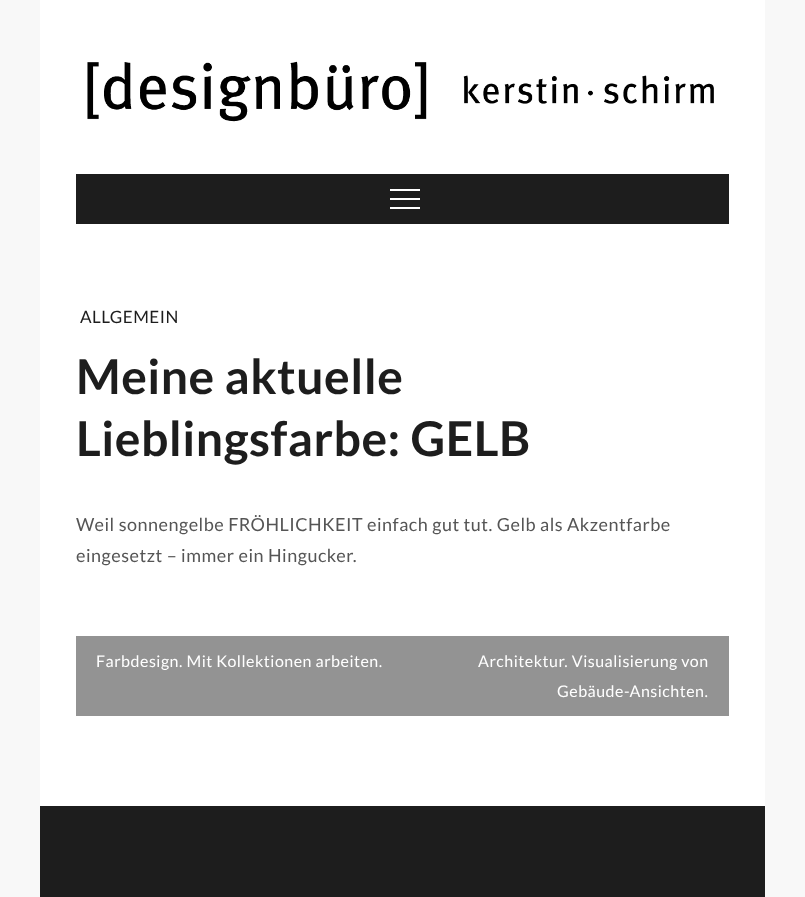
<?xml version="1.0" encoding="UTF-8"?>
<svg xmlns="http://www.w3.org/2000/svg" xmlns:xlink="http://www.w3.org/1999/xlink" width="805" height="897">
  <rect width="100%" height="100%" fill="#f8f8f8" />
  <rect x="40" width="725" height="806" fill="#ffffff" />
  <image x="87" y="61" width="627" height="61" xlink:href="image1.png" />
  <rect x="76" y="174" width="653" height="50" fill="#1d1d1d" />
  <rect x="390" y="189" width="30" height="2" fill="#ffffff" />
  <rect x="390" y="198" width="30" height="2" fill="#ffffff" />
  <rect x="390" y="207" width="30" height="2" fill="#ffffff" />
  <rect x="76" y="636" width="653" height="80" fill="#939393" />
  <rect x="40" y="806" width="725" height="91" fill="#1d1d1d" />
  <text x="80" y="323" style="font-family: Lato; font-size: 17px; letter-spacing: 0.5px; fill: #1d1d1d">ALLGEMEIN</text>
  <text x="76" y="394" style="font-family: Lato; font-size: 48px; font-weight: bold; letter-spacing: 0.5px; fill: #1d1d1d">Meine aktuelle</text>
  <text x="76" y="456" style="font-family: Lato; font-size: 48px; font-weight: bold; letter-spacing: 0.5px; fill: #1d1d1d">Lieblingsfarbe: GELB</text>
  <text x="76" y="531" style="font-family: Lato; font-size: 18px; letter-spacing: 0.5px; fill: #555555">Weil sonnengelbe FRÖHLICHKEIT einfach gut tut. Gelb als Akzentfarbe</text>
  <text x="76" y="562" style="font-family: Lato; font-size: 18px; letter-spacing: 0.5px; fill: #555555">eingesetzt – immer ein Hingucker.</text>
  <text x="96" y="667" style="font-family: Lato; font-size: 16px; letter-spacing: 0.5px; fill: #ffffff">Farbdesign. Mit Kollektionen arbeiten.</text>
  <text x="478" y="667" style="font-family: Lato; font-size: 16px; letter-spacing: 0.5px; fill: #ffffff">Architektur. Visualisierung von</text>
  <text x="557" y="697" style="font-family: Lato; font-size: 16px; letter-spacing: 0.5px; fill: #ffffff">Gebäude-Ansichten.</text>
</svg>
